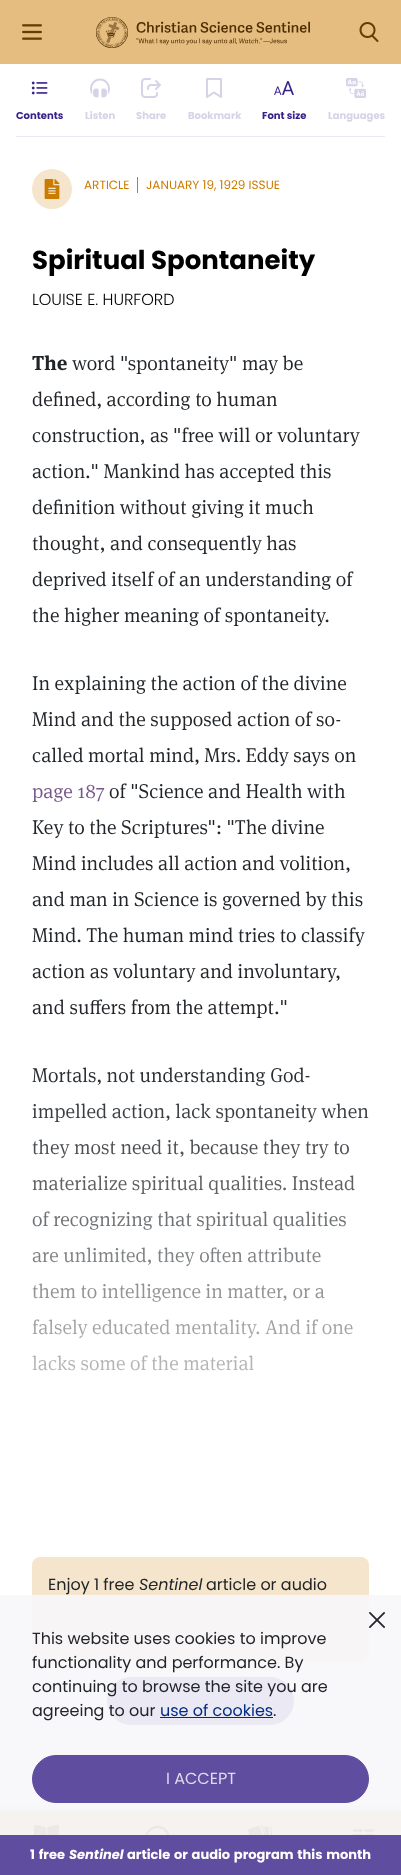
<?xml version="1.0" encoding="UTF-8"?>
<svg xmlns="http://www.w3.org/2000/svg" xmlns:xlink="http://www.w3.org/1999/xlink" width="401" height="1875">
  <defs>
    <linearGradient id="g1" gradientUnits="userSpaceOnUse" x1="200" y1="1057" x2="201" y2="1525"><stop offset="0" stop-color="#ffffff" stop-opacity="0" /><stop offset="1" stop-color="#ffffff" /></linearGradient>
  </defs>
  <rect width="100%" height="100%" fill="#ffffff" />
  <rect width="401" height="64" fill="#e5bd80" />
  <image x="22" y="24" width="20" height="16" xlink:href="image1.png" />
  <image x="96" y="17" width="214" height="31" xlink:href="image2.png" />
  <image x="359" y="22" width="20" height="20" xlink:href="image3.png" />
  <rect x="16" y="136" width="369" height="1" fill="#ebe9f3" />
  <image x="31" y="81" width="17" height="14" xlink:href="image4.png" />
  <image x="90" y="78" width="20" height="20" xlink:href="image5.png" />
  <image x="141" y="78" width="20" height="20" xlink:href="image6.png" />
  <image x="206" y="78" width="16" height="20" xlink:href="image7.png" />
  <image x="274" y="81" width="20" height="14" xlink:href="image8.png" />
  <image x="346" y="78" width="20" height="20" xlink:href="image9.png" />
  <circle cx="52" cy="189" r="20" fill="#f4e5cc" />
  <image x="44" y="179" width="16" height="20" xlink:href="image10.png" />
  <rect x="137" y="177" width="1" height="16" fill="#cb7b00" />
  <rect x="32" y="1557" width="337" height="104" rx="8" fill="#f4e5cc" />
  <rect x="107.5" y="1677.5" width="186" height="47" rx="23.5" fill="#5f4da0" stroke="#5f4da0" />
  <rect y="1808" width="401" height="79" fill="#000000" fill-opacity="0.2" filter="blur(4px)" />
  <rect y="1811" width="401" height="24" fill="#e5bd80" />
  <image x="34" y="1825" width="25" height="10" xlink:href="image12.png" />
  <image x="145" y="1825" width="25" height="10" xlink:href="image13.png" />
  <image x="248" y="1825" width="24" height="10" xlink:href="image14.png" />
  <image x="353" y="1829" width="21" height="6" xlink:href="image15.png" />
  <rect y="1595" width="401" height="240" fill="#f7f6fa" fill-opacity="0.92" />
  <image x="369" y="1612" width="16" height="16" xlink:href="image11.png" />
  <rect x="160" y="1717" width="113" height="1" fill="#002d83" />
  <rect x="32.5" y="1755.5" width="336" height="47" rx="23.5" fill="#5f4da0" stroke="#5f4da0" />
  <rect y="1835" width="401" height="40" fill="#5f4da0" />
  <text x="16" y="119" style="font-family: Poppins; font-size: 10px; font-weight: bold; fill: #372189">Contents</text>
  <text x="85" y="119" style="font-family: Poppins; font-size: 10px; font-weight: bold; fill: #d7d3e7">Listen</text>
  <text x="136" y="119" style="font-family: Poppins; font-size: 10px; font-weight: bold; fill: #d7d3e7">Share</text>
  <text x="188" y="119" style="font-family: Poppins; font-size: 10px; font-weight: bold; fill: #d7d3e7">Bookmark</text>
  <text x="262" y="119" style="font-family: Poppins; font-size: 10px; font-weight: bold; fill: #372189">Font size</text>
  <text x="328" y="119" style="font-family: Poppins; font-size: 10px; font-weight: bold; fill: #d7d3e7">Languages</text>
  <text x="84" y="189" style="font-family: Poppins; font-size: 12px; fill: #cb7b00">ARTICLE</text>
  <text x="146" y="189" style="font-family: Poppins; font-size: 12px; fill: #cb7b00">JANUARY 19, 1929 ISSUE</text>
  <text x="32" y="269" style="font-family: Poppins; font-size: 26px; font-weight: bold; fill: #000000">Spiritual Spontaneity</text>
  <text x="32" y="305" style="font-family: Poppins; font-size: 16px; font-weight: 300; fill: #000000">LOUISE E. HURFORD</text>
  <text x="32" y="370" style="font-family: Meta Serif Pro; font-size: 20px; font-weight: bold; fill: #212529">The</text>
  <text x="72" y="370" style="font-family: Meta Serif Pro; font-size: 20px; font-weight: 300; fill: #212529">word "spontaneity" may be</text>
  <text x="32" y="406" style="font-family: Meta Serif Pro; font-size: 20px; font-weight: 300; fill: #212529">defined, according to human</text>
  <text x="32" y="442" style="font-family: Meta Serif Pro; font-size: 20px; font-weight: 300; fill: #212529">construction, as "free will or voluntary</text>
  <text x="32" y="478" style="font-family: Meta Serif Pro; font-size: 20px; font-weight: 300; fill: #212529">action." Mankind has accepted this</text>
  <text x="32" y="514" style="font-family: Meta Serif Pro; font-size: 20px; font-weight: 300; fill: #212529">definition without giving it much</text>
  <text x="32" y="550" style="font-family: Meta Serif Pro; font-size: 20px; font-weight: 300; fill: #212529">thought, and consequently has</text>
  <text x="32" y="586" style="font-family: Meta Serif Pro; font-size: 20px; font-weight: 300; fill: #212529">deprived itself of an understanding of</text>
  <text x="32" y="622" style="font-family: Meta Serif Pro; font-size: 20px; font-weight: 300; fill: #212529">the higher meaning of spontaneity.</text>
  <text x="32" y="690" style="font-family: Meta Serif Pro; font-size: 20px; font-weight: 300; fill: #212529">In explaining the action of the divine</text>
  <text x="32" y="726" style="font-family: Meta Serif Pro; font-size: 20px; font-weight: 300; fill: #212529">Mind and the supposed action of so-</text>
  <text x="32" y="762" style="font-family: Meta Serif Pro; font-size: 20px; font-weight: 300; fill: #212529">called mortal mind, Mrs. Eddy says on</text>
  <text x="32" y="798" style="font-family: Meta Serif Pro; font-size: 20px; font-weight: 300; fill: #775588">page 187</text>
  <text x="109" y="798" style="font-family: Meta Serif Pro; font-size: 20px; font-weight: 300; fill: #212529">of "Science and Health with</text>
  <text x="32" y="834" style="font-family: Meta Serif Pro; font-size: 20px; font-weight: 300; fill: #212529">Key to the Scriptures": "The divine</text>
  <text x="32" y="870" style="font-family: Meta Serif Pro; font-size: 20px; font-weight: 300; fill: #212529">Mind includes all action and volition,</text>
  <text x="32" y="906" style="font-family: Meta Serif Pro; font-size: 20px; font-weight: 300; fill: #212529">and man in Science is governed by this</text>
  <text x="32" y="942" style="font-family: Meta Serif Pro; font-size: 20px; font-weight: 300; fill: #212529">Mind. The human mind tries to classify</text>
  <text x="32" y="978" style="font-family: Meta Serif Pro; font-size: 20px; font-weight: 300; fill: #212529">action as voluntary and involuntary,</text>
  <text x="32" y="1014" style="font-family: Meta Serif Pro; font-size: 20px; font-weight: 300; fill: #212529">and suffers from the attempt."</text>
  <text x="32" y="1082" style="font-family: Meta Serif Pro; font-size: 20px; font-weight: 300; fill: #212529">Mortals, not understanding God-</text>
  <text x="32" y="1118" style="font-family: Meta Serif Pro; font-size: 20px; font-weight: 300; fill: #212529">impelled action, lack spontaneity when</text>
  <text x="32" y="1154" style="font-family: Meta Serif Pro; font-size: 20px; font-weight: 300; fill: #212529">they most need it, because they try to</text>
  <text x="32" y="1190" style="font-family: Meta Serif Pro; font-size: 20px; font-weight: 300; fill: #212529">materialize spiritual qualities. Instead</text>
  <text x="32" y="1226" style="font-family: Meta Serif Pro; font-size: 20px; font-weight: 300; fill: #212529">of recognizing that spiritual qualities</text>
  <text x="32" y="1262" style="font-family: Meta Serif Pro; font-size: 20px; font-weight: 300; fill: #212529">are unlimited, they often attribute</text>
  <text x="32" y="1298" style="font-family: Meta Serif Pro; font-size: 20px; font-weight: 300; fill: #212529">them to intelligence in matter, or a</text>
  <text x="32" y="1334" style="font-family: Meta Serif Pro; font-size: 20px; font-weight: 300; fill: #212529">falsely educated mentality. And if one</text>
  <text x="32" y="1370" style="font-family: Meta Serif Pro; font-size: 20px; font-weight: 300; fill: #212529">lacks some of the material</text>
  <rect x="32" y="1068" width="337" height="303" fill="url(#g1)" />
  <text x="48" y="1590" style="font-family: Poppins; font-size: 16px; fill: #212529">Enjoy 1 free</text>
  <text x="139" y="1590" style="font-family: Poppins; font-size: 16px; font-style: italic; fill: #212529">Sentinel</text>
  <text x="206" y="1590" style="font-family: Poppins; font-size: 16px; fill: #212529">article or audio</text>
  <text x="32" y="1644" style="font-family: Poppins; font-size: 16px; fill: #212529">This website uses cookies to improve</text>
  <text x="32" y="1668" style="font-family: Poppins; font-size: 16px; fill: #212529">functionality and performance. By</text>
  <text x="32" y="1692" style="font-family: Poppins; font-size: 16px; fill: #212529">continuing to browse the site you are</text>
  <text x="32" y="1716" style="font-family: Poppins; font-size: 16px; fill: #212529">agreeing to our</text>
  <text x="160" y="1716" style="font-family: Poppins; font-size: 16px; fill: #002d83">use of cookies</text>
  <text x="273" y="1716" style="font-family: Poppins; font-size: 16px; fill: #212529">.</text>
  <text x="166" y="1784" style="font-family: Poppins; font-size: 16px; fill: #dfdbec">I ACCEPT</text>
  <text x="30" y="1859" word-spacing="1" style="font-family: Poppins; font-size: 13px; font-weight: bold; fill: #ffffff">1 free</text>
  <text x="69" y="1859" style="font-family: Poppins; font-size: 13px; font-weight: bold; font-style: italic; fill: #ffffff">Sentinel</text>
  <text x="127" y="1859" word-spacing="1" style="font-family: Poppins; font-size: 13px; font-weight: bold; fill: #ffffff">article or audio program this month</text>
</svg>
